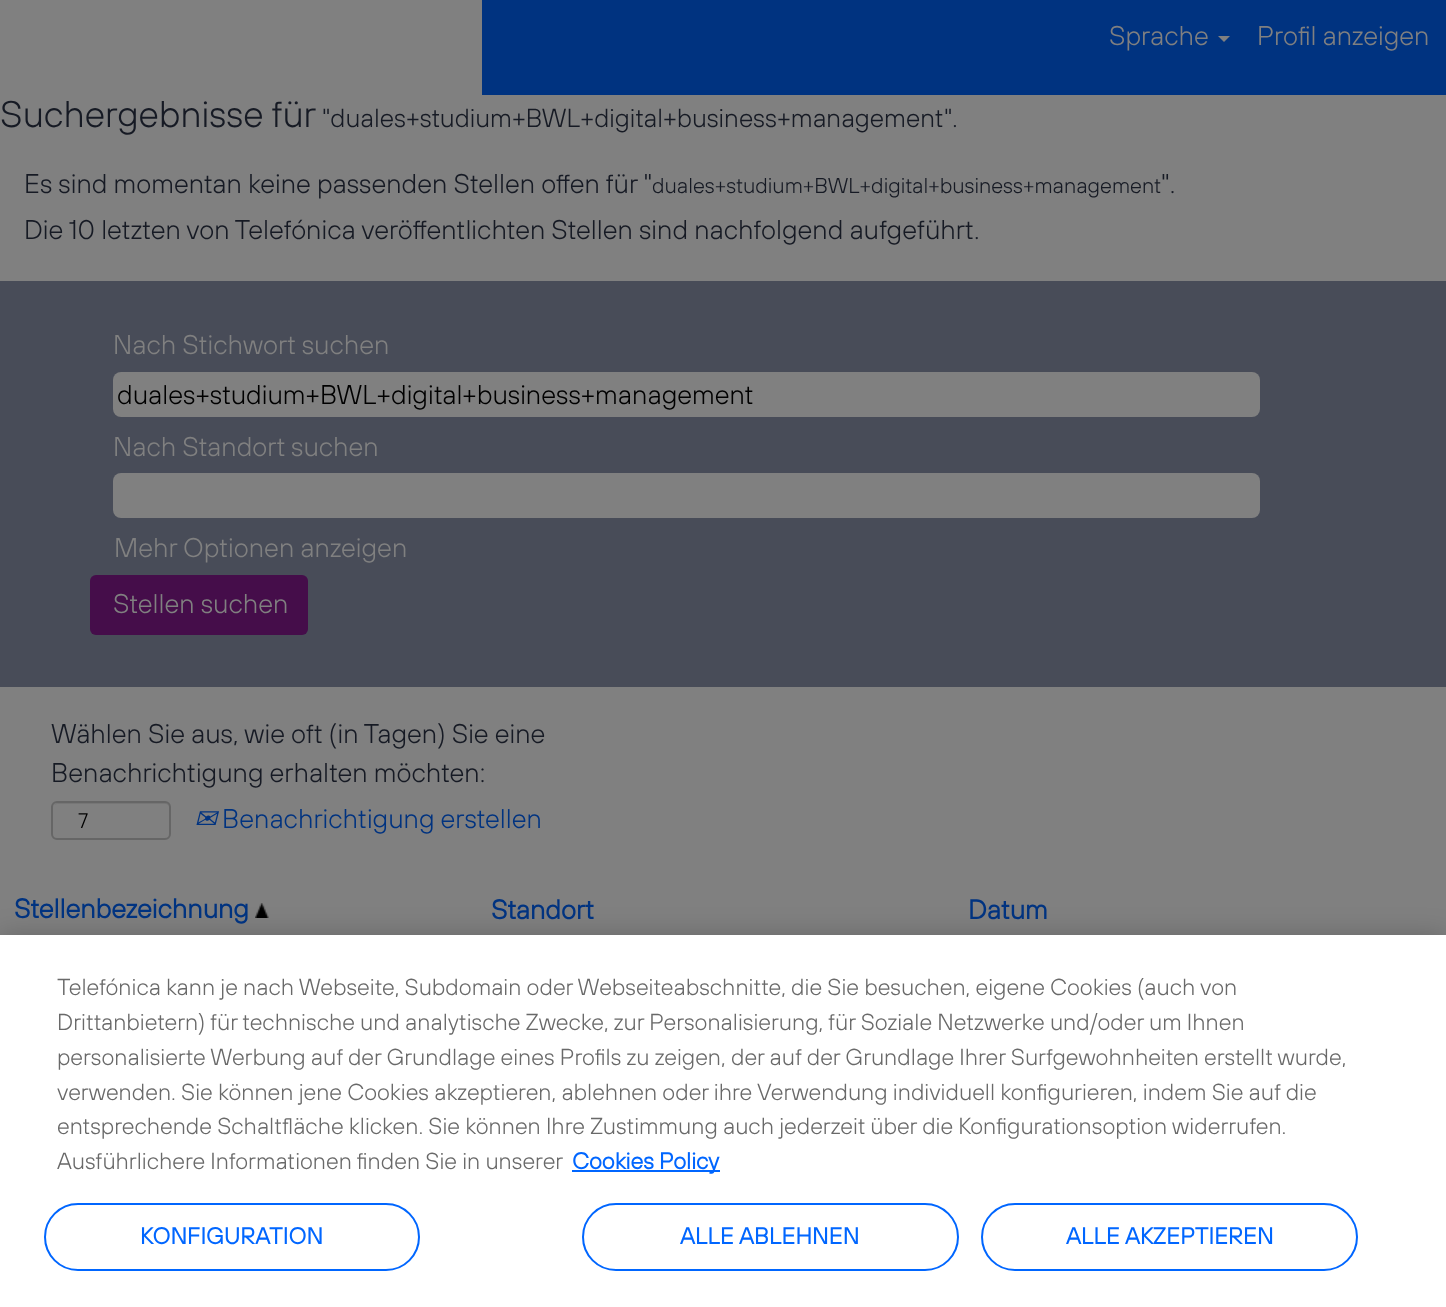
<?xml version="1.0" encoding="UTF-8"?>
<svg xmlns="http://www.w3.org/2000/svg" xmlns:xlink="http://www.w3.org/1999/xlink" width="1446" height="1307">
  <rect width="100%" height="100%" fill="#808080" />
  <rect x="482" width="964" height="95" fill="#003380" />
  <path d="M 1218 36 h 12 l -6 6 z" fill="#808080" />
  <rect y="281" width="1446" height="406" fill="#484c58" />
  <rect x="113" y="372" width="1147" height="45" rx="8" fill="#808080" />
  <rect x="113" y="473" width="1147" height="45" rx="8" fill="#808080" />
  <rect x="90" y="575" width="218" height="60" rx="6" fill="#450d4a" />
  <path d="M 57 804 h 108 c 2 0 5 2 5 4 c 0 -3 -2 -5 -5 -5 h -107 c -2 0 -3 1 -4 2 z" fill="#767676" />
  <rect x="52" y="802" width="118" height="37" rx="5" fill="none" stroke="#666666" stroke-width="2" />
  <image x="255" y="903" width="14" height="15" xlink:href="image1.png" />
  <rect y="935" width="1446" height="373" fill="#000000" fill-opacity="0.2" filter="blur(13.5px)" />
  <rect y="935" width="1446" height="372" fill="#ffffff" />
  <rect x="572" y="1170" width="148" height="2" fill="#0066ff" />
  <rect x="45" y="1204" width="374" height="66" rx="33" fill="none" stroke="#0066ff" stroke-width="2" />
  <rect x="583" y="1204" width="375" height="66" rx="33" fill="none" stroke="#0066ff" stroke-width="2" />
  <rect x="982" y="1204" width="375" height="66" rx="33" fill="none" stroke="#0066ff" stroke-width="2" />
  <text x="1109" y="45" style="font-family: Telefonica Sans; font-size: 27px; font-weight: 300; fill: #808080">Sprache</text>
  <text x="1257" y="45" style="font-family: Telefonica Sans; font-size: 27px; font-weight: 300; fill: #808080">Profil anzeigen</text>
  <text x="0" y="127" style="font-family: Telefonica Sans; font-size: 37.1px; font-weight: 300; fill: #161a24">Suchergebnisse für</text>
  <text x="322" y="127" style="font-family: Telefonica Sans; font-size: 26px; font-weight: 300; fill: #161a24">"duales+studium+BWL+digital+business+management".</text>
  <text x="24" y="193" style="font-family: Telefonica Sans; font-size: 27px; font-weight: 300; fill: #161a24">Es sind momentan keine passenden Stellen offen für "</text>
  <text x="652" y="193" style="font-family: Telefonica Sans; font-size: 21.6px; font-weight: 300; fill: #161a24">duales+studium+BWL+digital+business+management</text>
  <text x="1161" y="193" style="font-family: Telefonica Sans; font-size: 27px; font-weight: 300; fill: #161a24">".</text>
  <text x="24" y="239" style="font-family: Telefonica Sans; font-size: 27px; font-weight: 300; fill: #161a24">Die 10 letzten von Telefónica veröffentlichten Stellen sind nachfolgend aufgeführt.</text>
  <text x="113" y="354" style="font-family: Telefonica Sans; font-size: 27px; font-weight: 300; fill: #808080">Nach Stichwort suchen</text>
  <text x="117" y="404" style="font-family: Telefonica Sans; font-size: 27px; font-weight: 300; fill: #000000">duales+studium+BWL+digital+business+management</text>
  <text x="113" y="456" style="font-family: Telefonica Sans; font-size: 27px; font-weight: 300; fill: #808080">Nach Standort suchen</text>
  <text x="114" y="557" style="font-family: Telefonica Sans; font-size: 27px; font-weight: 300; fill: #808080">Mehr Optionen anzeigen</text>
  <text x="113" y="613" style="font-family: Telefonica Sans; font-size: 27px; font-weight: 300; fill: #808080">Stellen suchen</text>
  <text x="51" y="743" style="font-family: Telefonica Sans; font-size: 27px; font-weight: 300; fill: #161a24">Wählen Sie aus, wie oft (in Tagen) Sie eine</text>
  <text x="51" y="782" style="font-family: Telefonica Sans; font-size: 27px; font-weight: 300; fill: #161a24">Benachrichtigung erhalten möchten:</text>
  <text x="78" y="828" style="font-family: Telefonica Sans; font-size: 21px; font-weight: 300; fill: #000000">7</text>
  <text x="194" y="828" style="font-family: DejaVu Sans; font-size: 27px; font-style: italic; fill: #003380">✉</text>
  <text x="222" y="828" style="font-family: Telefonica Sans; font-size: 27px; font-weight: 300; fill: #003380">Benachrichtigung erstellen</text>
  <text x="14" y="918" style="font-family: Telefonica Sans; font-size: 27px; font-weight: bold; fill: #003380">Stellenbezeichnung</text>
  <text x="491" y="919" style="font-family: Telefonica Sans; font-size: 27px; font-weight: bold; fill: #003380">Standort</text>
  <text x="968" y="919" style="font-family: Telefonica Sans; font-size: 27px; font-weight: bold; fill: #003380">Datum</text>
  <text x="57" y="995" style="font-family: Telefonica Sans; font-size: 23.17px; font-weight: 300; fill: #696969">Telefónica kann je nach Webseite, Subdomain oder Webseiteabschnitte, die Sie besuchen, eigene Cookies (auch von</text>
  <text x="57" y="1030" style="font-family: Telefonica Sans; font-size: 23.17px; font-weight: 300; fill: #696969">Drittanbietern) für technische und analytische Zwecke, zur Personalisierung, für Soziale Netzwerke und/oder um Ihnen</text>
  <text x="57" y="1065" style="font-family: Telefonica Sans; font-size: 23.17px; font-weight: 300; fill: #696969">personalisierte Werbung auf der Grundlage eines Profils zu zeigen, der auf der Grundlage Ihrer Surfgewohnheiten erstellt wurde,</text>
  <text x="57" y="1100" style="font-family: Telefonica Sans; font-size: 23.17px; font-weight: 300; fill: #696969">verwenden. Sie können jene Cookies akzeptieren, ablehnen oder ihre Verwendung individuell konfigurieren, indem Sie auf die</text>
  <text x="57" y="1134" style="font-family: Telefonica Sans; font-size: 23.17px; font-weight: 300; fill: #696969">entsprechende Schaltfläche klicken. Sie können Ihre Zustimmung auch jederzeit über die Konfigurationsoption widerrufen.</text>
  <text x="57" y="1169" style="font-family: Telefonica Sans; font-size: 23.17px; font-weight: 300; fill: #696969">Ausführlichere Informationen finden Sie in unserer</text>
  <text x="572" y="1169" style="font-family: Telefonica Sans; font-size: 23.17px; font-weight: bold; fill: #0066ff">Cookies Policy</text>
  <text x="140" y="1244" style="font-family: Telefonica Sans; font-size: 23.17px; font-weight: bold; letter-spacing: 0.25px; fill: #0066ff">KONFIGURATION</text>
  <text x="680" y="1244" style="font-family: Telefonica Sans; font-size: 23.17px; font-weight: bold; letter-spacing: 0.25px; fill: #0066ff">ALLE ABLEHNEN</text>
  <text x="1066" y="1244" style="font-family: Telefonica Sans; font-size: 23.17px; font-weight: bold; letter-spacing: 0.25px; fill: #0066ff">ALLE AKZEPTIEREN</text>
</svg>
